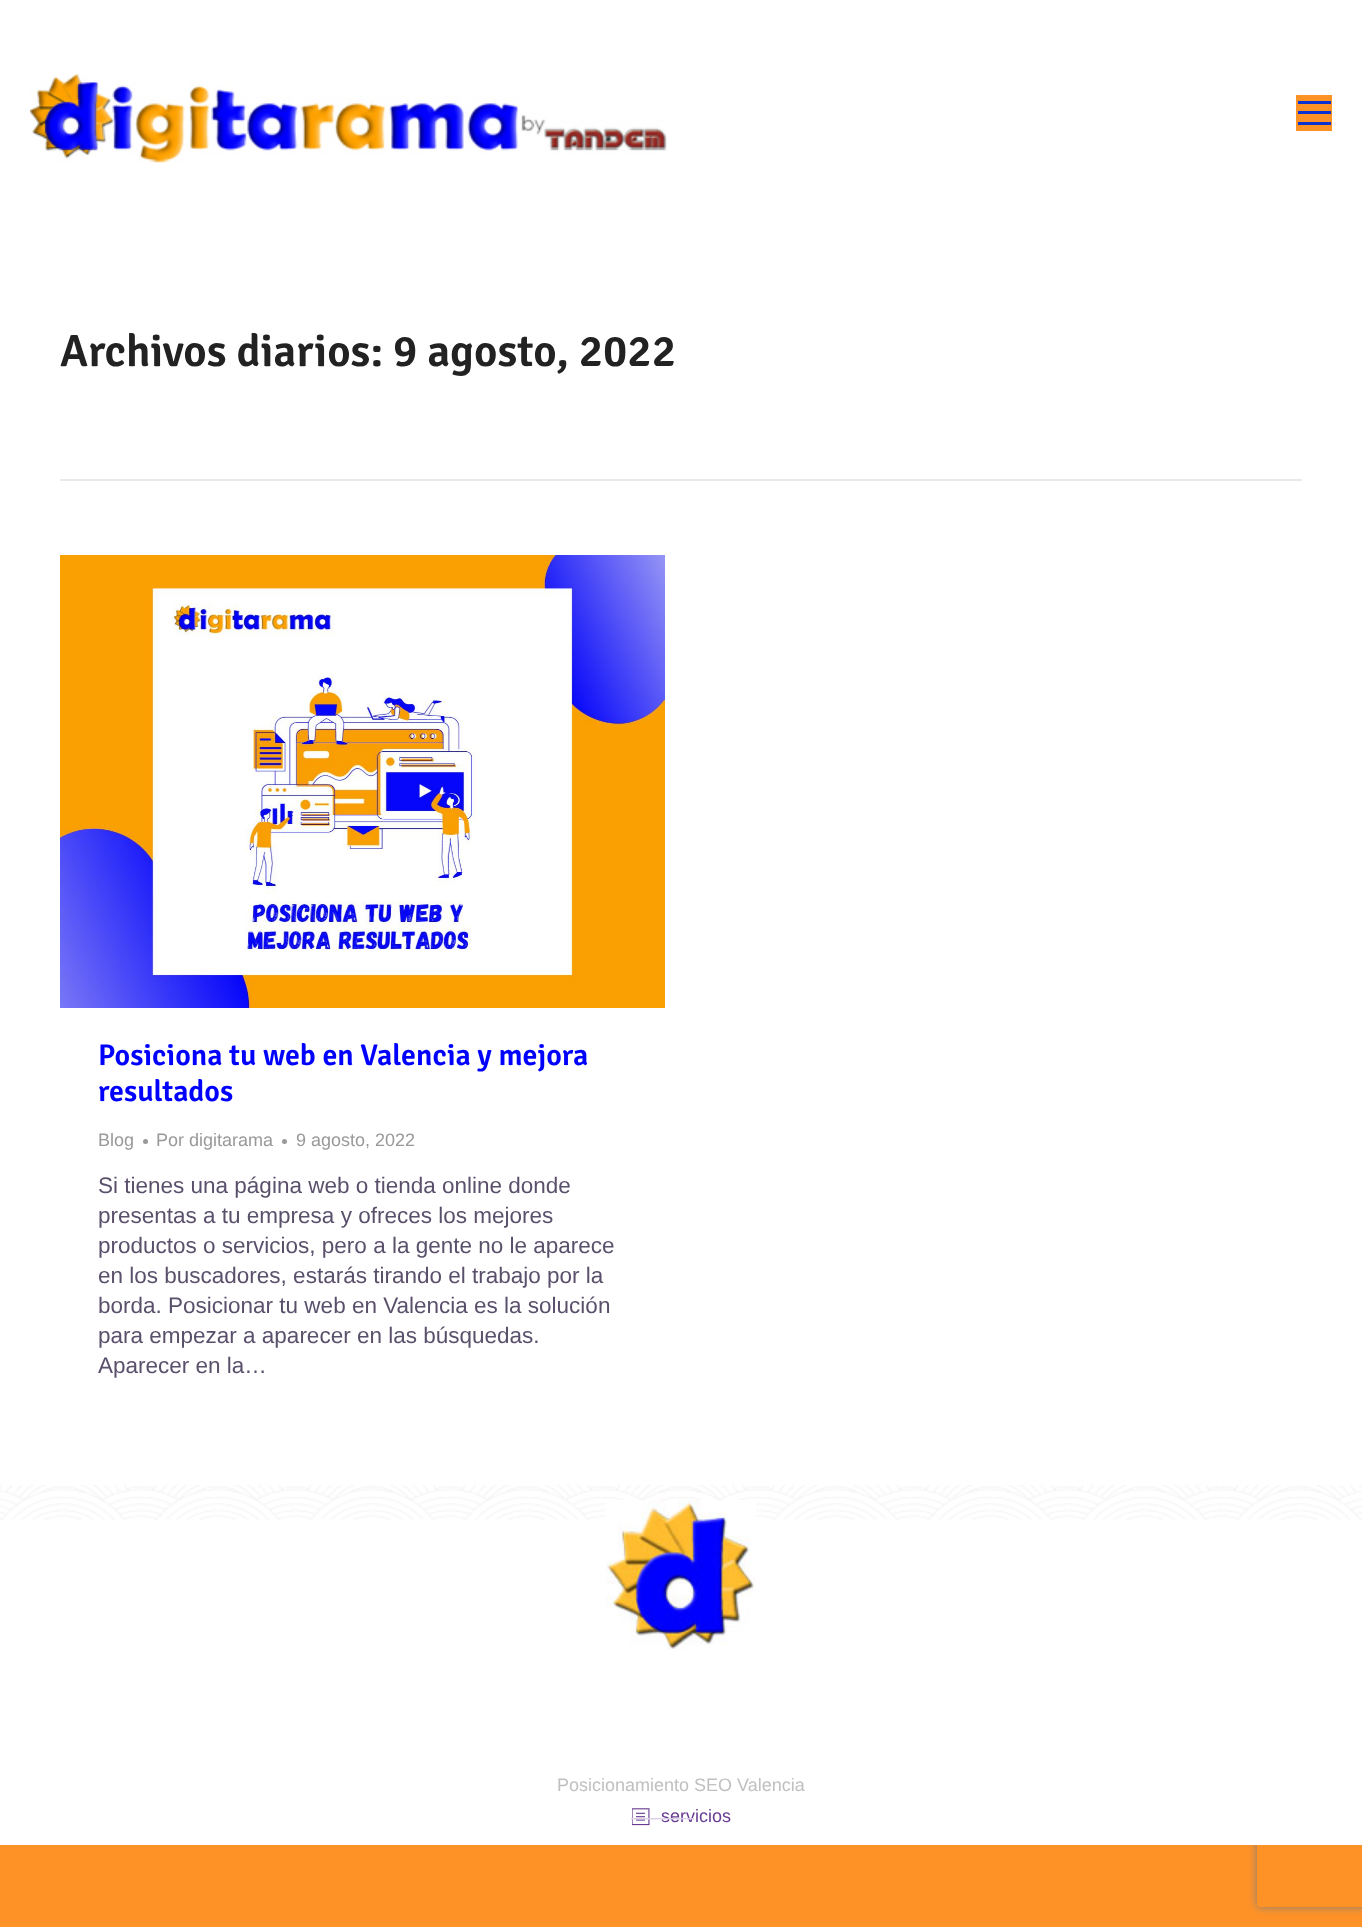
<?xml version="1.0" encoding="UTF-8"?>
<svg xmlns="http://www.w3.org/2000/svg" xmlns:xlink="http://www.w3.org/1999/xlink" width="1362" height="1927">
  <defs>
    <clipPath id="clip1"><path d="M 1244 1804 h 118 v 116 h -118 z m 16 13 h 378 c 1.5 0 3 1.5 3 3 v 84 c 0 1.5 -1.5 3 -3 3 h -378 c -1.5 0 -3 -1.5 -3 -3 v -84 c 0 -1.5 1.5 -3 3 -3 z" clip-rule="evenodd" /></clipPath>
  </defs>
  <rect width="100%" height="100%" fill="#ff9226" />
  <rect width="1362" height="1485" fill="#ffffff" />
  <image x="30" y="73" width="637" height="90" xlink:href="image1.png" />
  <rect x="1296" y="95" width="36" height="36" fill="#ff9226" />
  <rect x="1298" y="101" width="33" height="3" fill="#0a32d1" />
  <rect x="1298" y="111" width="33" height="3" fill="#0a32d1" />
  <rect x="1298" y="122" width="33" height="3" fill="#0a32d1" />
  <rect x="60" y="479" width="1242" height="2" fill="#e9e9e9" />
  <image x="60" y="555" width="605" height="453" xlink:href="image2.png" />
  <circle cx="145.5" cy="1141.5" r="2.5" fill="#999999" />
  <circle cx="284.5" cy="1141.5" r="2.5" fill="#999999" />
  <g clip-path="url(#clip1)">
    <rect x="1257" y="1817" width="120" height="90" rx="3" fill="#808080" filter="blur(4px)" />
  </g>
  <rect y="1519" width="1362" height="326" fill="#ffffff" />
  <image x="0" y="1485" width="1362" height="35" xlink:href="image3.png" />
  <image x="606" y="1500" width="150" height="150" xlink:href="image4.png" />
  <image x="632" y="1808" width="18" height="18" xlink:href="image5.png" />
  <text x="60" y="366" style="font-family: Signika; font-size: 45px; font-weight: 600; fill: #222222">Archivos diarios: 9 agosto, 2022</text>
  <text x="98" y="1065" style="font-family: Signika; font-size: 30px; font-weight: 600; fill: #0000ff">Posiciona tu web en Valencia y mejora</text>
  <text x="98" y="1101" style="font-family: Signika; font-size: 30px; font-weight: 600; fill: #0000ff">resultados</text>
  <text x="98" y="1146" style="font-family: Liberation Sans; font-size: 18px; fill: #999999">Blog</text>
  <text x="156" y="1146" style="font-family: Liberation Sans; font-size: 18px; fill: #999999">Por digitarama</text>
  <text x="296" y="1146" style="font-family: Liberation Sans; font-size: 18px; fill: #999999">9 agosto, 2022</text>
  <text x="98" y="1193" style="font-family: Liberation Sans; font-size: 22.5px; fill: #5a506b">Si tienes una página web o tienda online donde</text>
  <text x="98" y="1223" style="font-family: Liberation Sans; font-size: 22.5px; fill: #5a506b">presentas a tu empresa y ofreces los mejores</text>
  <text x="98" y="1253" style="font-family: Liberation Sans; font-size: 22.5px; fill: #5a506b">productos o servicios, pero a la gente no le aparece</text>
  <text x="98" y="1283" style="font-family: Liberation Sans; font-size: 22.5px; fill: #5a506b">en los buscadores, estarás tirando el trabajo por la</text>
  <text x="98" y="1313" style="font-family: Liberation Sans; font-size: 22.5px; fill: #5a506b">borda. Posicionar tu web en Valencia es la solución</text>
  <text x="98" y="1343" style="font-family: Liberation Sans; font-size: 22.5px; fill: #5a506b">para empezar a aparecer en las búsquedas.</text>
  <text x="98" y="1373" style="font-family: Liberation Sans; font-size: 22.5px; fill: #5a506b">Aparecer en la…</text>
  <text x="557" y="1791" style="font-family: Liberation Sans; font-size: 18px; fill: #c0c0c0">Posicionamiento SEO Valencia</text>
  <text x="661" y="1822" style="font-family: Liberation Sans; font-size: 18px; fill: #683c93">servicios</text>
  <text x="631" y="1824" style="font-family: Liberation Sans; font-size: 21px; fill: #dcd1e6">———</text>
</svg>
